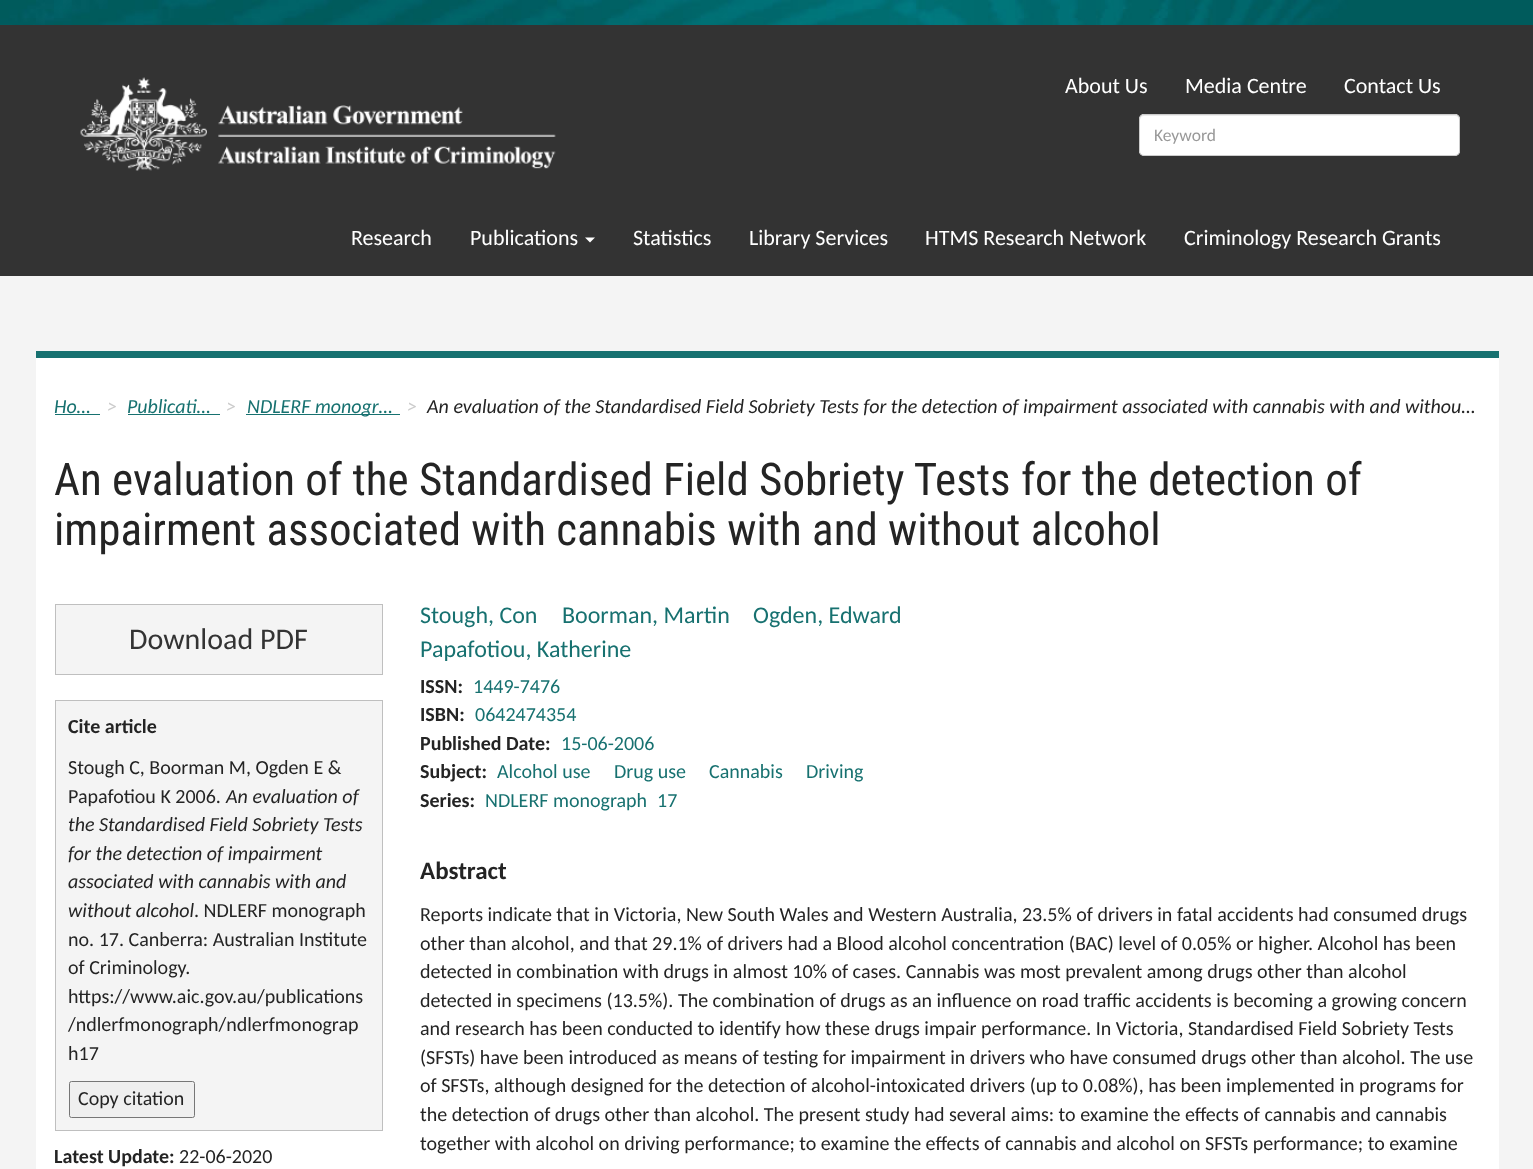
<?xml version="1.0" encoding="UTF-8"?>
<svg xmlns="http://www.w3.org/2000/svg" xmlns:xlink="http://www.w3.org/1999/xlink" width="1533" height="1169">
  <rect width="100%" height="100%" fill="#f4f4f4" />
  <image x="0" y="0" width="1533" height="25" xlink:href="image1.png" />
  <rect y="25" width="1533" height="251" fill="#333333" />
  <image x="80" y="77" width="476" height="94" xlink:href="image2.png" />
  <rect x="1139" y="114" width="321" height="42" rx="5" fill="#ffffff" />
  <path d="M 1144 116 h 311 c 2 0 4 2 4 4 v -1 c 0 -2 -2 -4 -4 -4 h -311 c -2 0 -4 2 -4 4 v 1 c 0 -2 2 -4 4 -4 z" fill="#ececec" />
  <rect x="1139.5" y="114.5" width="320" height="41" rx="4.5" fill="none" stroke="#cccccc" />
  <path d="M 585 237.5 h 10 l -5 5 z" fill="#ffffff" />
  <rect x="36" y="358" width="1463" height="811" fill="#ffffff" />
  <rect x="36" y="351" width="1463" height="7" fill="#177170" />
  <rect x="55" y="414" width="45" height="1" fill="#177170" />
  <rect x="128" y="414" width="92" height="1" fill="#177170" />
  <rect x="246" y="414" width="154" height="1" fill="#177170" />
  <rect x="55.5" y="604.5" width="327" height="70" fill="#f4f4f4" stroke="#bfbfbf" />
  <rect x="55.5" y="700.5" width="327" height="430" fill="#f4f4f4" stroke="#bfbfbf" />
  <rect x="69.5" y="1081.5" width="125" height="36" rx="2" fill="#efefef" stroke="#767676" />
  <text x="1065" y="93" style="font-family: Carlito; font-size: 22px; fill: #ffffff">About Us</text>
  <text x="1185" y="93" style="font-family: Carlito; font-size: 22px; fill: #ffffff">Media Centre</text>
  <text x="1344" y="93" style="font-family: Carlito; font-size: 22px; fill: #ffffff">Contact Us</text>
  <text x="1154" y="141" style="font-family: Carlito; font-size: 17.5px; fill: #999999">Keyword</text>
  <text x="351" y="245" style="font-family: Carlito; font-size: 22px; fill: #ffffff">Research</text>
  <text x="470" y="245" style="font-family: Carlito; font-size: 22px; fill: #ffffff">Publications</text>
  <text x="633" y="245" style="font-family: Carlito; font-size: 22px; fill: #ffffff">Statistics</text>
  <text x="749" y="245" style="font-family: Carlito; font-size: 22px; fill: #ffffff">Library Services</text>
  <text x="925" y="245" style="font-family: Carlito; font-size: 22px; fill: #ffffff">HTMS Research Network</text>
  <text x="1184" y="245" style="font-family: Carlito; font-size: 22px; fill: #ffffff">Criminology Research Grants</text>
  <text x="54" y="413" style="font-family: Carlito; font-size: 20px; font-style: italic; fill: #177170">Ho…</text>
  <text x="107" y="413" style="font-family: Carlito; font-size: 20px; font-style: italic; fill: #cccccc">&gt;</text>
  <text x="127" y="413" style="font-family: Carlito; font-size: 20px; font-style: italic; fill: #177170">Publicati…</text>
  <text x="226" y="413" style="font-family: Carlito; font-size: 20px; font-style: italic; fill: #cccccc">&gt;</text>
  <text x="247" y="413" style="font-family: Carlito; font-size: 20px; font-style: italic; fill: #177170">NDLERF monogr…</text>
  <text x="407" y="413" style="font-family: Carlito; font-size: 20px; font-style: italic; fill: #cccccc">&gt;</text>
  <text x="427" y="413" style="font-family: Carlito; font-size: 20px; font-style: italic; fill: #242424">An evaluation of the Standardised Field Sobriety Tests for the detection of impairment associated with cannabis with and withou…</text>
  <text x="54" y="495" style="font-family: Roboto Condensed; font-size: 45px; fill: #242424">An evaluation of the Standardised Field Sobriety Tests for the detection of</text>
  <text x="54" y="545" style="font-family: Roboto Condensed; font-size: 45px; fill: #242424">impairment associated with cannabis with and without alcohol</text>
  <text x="129" y="649" style="font-family: Carlito; font-size: 30px; fill: #333333">Download PDF</text>
  <text x="68" y="733" style="font-family: Carlito; font-size: 20px; font-weight: bold; fill: #242424">Cite article</text>
  <text x="68" y="774" style="font-family: Carlito; font-size: 20px; fill: #242424">Stough C, Boorman M, Ogden E &amp;</text>
  <text x="68" y="803" style="font-family: Carlito; font-size: 20px; fill: #242424">Papafotiou K 2006.</text>
  <text x="226" y="803" style="font-family: Carlito; font-size: 20px; font-style: italic; fill: #242424">An evaluation of</text>
  <text x="68" y="831" style="font-family: Carlito; font-size: 20px; font-style: italic; fill: #242424">the Standardised Field Sobriety Tests</text>
  <text x="68" y="860" style="font-family: Carlito; font-size: 20px; font-style: italic; fill: #242424">for the detection of impairment</text>
  <text x="68" y="888" style="font-family: Carlito; font-size: 20px; font-style: italic; fill: #242424">associated with cannabis with and</text>
  <text x="68" y="917" style="font-family: Carlito; font-size: 20px; font-style: italic; fill: #242424">without alcohol</text>
  <text x="194" y="917" style="font-family: Carlito; font-size: 20px; fill: #242424">. NDLERF monograph</text>
  <text x="68" y="946" style="font-family: Carlito; font-size: 20px; fill: #242424">no. 17. Canberra: Australian Institute</text>
  <text x="68" y="974" style="font-family: Carlito; font-size: 20px; fill: #242424">of Criminology.</text>
  <text x="68" y="1003" style="font-family: Carlito; font-size: 20px; fill: #242424">https://www.aic.gov.au/publications</text>
  <text x="68" y="1031" style="font-family: Carlito; font-size: 20px; fill: #242424">/ndlerfmonograph/ndlerfmonograp</text>
  <text x="68" y="1060" style="font-family: Carlito; font-size: 20px; fill: #242424">h17</text>
  <text x="78" y="1105" style="font-family: Carlito; font-size: 20px; fill: #242424">Copy citation</text>
  <text x="54" y="1163" style="font-family: Carlito; font-size: 20px; font-weight: bold; fill: #242424">Latest Update:</text>
  <text x="179" y="1163" style="font-family: Carlito; font-size: 20px; fill: #242424">22-06-2020</text>
  <text x="420" y="623" style="font-family: Carlito; font-size: 24px; fill: #177170">Stough, Con</text>
  <text x="562" y="623" style="font-family: Carlito; font-size: 24px; fill: #177170">Boorman, Martin</text>
  <text x="753" y="623" style="font-family: Carlito; font-size: 24px; fill: #177170">Ogden, Edward</text>
  <text x="420" y="657" style="font-family: Carlito; font-size: 24px; fill: #177170">Papafotiou, Katherine</text>
  <text x="420" y="693" style="font-family: Carlito; font-size: 20px; font-weight: bold; fill: #242424">ISSN:</text>
  <text x="473" y="693" style="font-family: Carlito; font-size: 20px; fill: #177170">1449-7476</text>
  <text x="420" y="721" style="font-family: Carlito; font-size: 20px; font-weight: bold; fill: #242424">ISBN:</text>
  <text x="475" y="721" style="font-family: Carlito; font-size: 20px; fill: #177170">0642474354</text>
  <text x="420" y="750" style="font-family: Carlito; font-size: 20px; font-weight: bold; fill: #242424">Published Date:</text>
  <text x="561" y="750" style="font-family: Carlito; font-size: 20px; fill: #177170">15-06-2006</text>
  <text x="420" y="778" style="font-family: Carlito; font-size: 20px; font-weight: bold; fill: #242424">Subject:</text>
  <text x="497" y="778" style="font-family: Carlito; font-size: 20px; fill: #177170">Alcohol use</text>
  <text x="614" y="778" style="font-family: Carlito; font-size: 20px; fill: #177170">Drug use</text>
  <text x="709" y="778" style="font-family: Carlito; font-size: 20px; fill: #177170">Cannabis</text>
  <text x="806" y="778" style="font-family: Carlito; font-size: 20px; fill: #177170">Driving</text>
  <text x="420" y="807" style="font-family: Carlito; font-size: 20px; font-weight: bold; fill: #242424">Series:</text>
  <text x="485" y="807" style="font-family: Carlito; font-size: 20px; fill: #177170">NDLERF monograph</text>
  <text x="657" y="807" style="font-family: Carlito; font-size: 20px; fill: #177170">17</text>
  <text x="420" y="879" style="font-family: Carlito; font-size: 25px; font-weight: bold; fill: #242424">Abstract</text>
  <text x="420" y="921" style="font-family: Carlito; font-size: 20px; fill: #242424">Reports indicate that in Victoria, New South Wales and Western Australia, 23.5% of drivers in fatal accidents had consumed drugs</text>
  <text x="420" y="950" style="font-family: Carlito; font-size: 20px; fill: #242424">other than alcohol, and that 29.1% of drivers had a Blood alcohol concentration (BAC) level of 0.05% or higher. Alcohol has been</text>
  <text x="420" y="978" style="font-family: Carlito; font-size: 20px; fill: #242424">detected in combination with drugs in almost 10% of cases. Cannabis was most prevalent among drugs other than alcohol</text>
  <text x="420" y="1007" style="font-family: Carlito; font-size: 20px; fill: #242424">detected in specimens (13.5%). The combination of drugs as an influence on road traffic accidents is becoming a growing concern</text>
  <text x="420" y="1035" style="font-family: Carlito; font-size: 20px; fill: #242424">and research has been conducted to identify how these drugs impair performance. In Victoria, Standardised Field Sobriety Tests</text>
  <text x="420" y="1064" style="font-family: Carlito; font-size: 20px; fill: #242424">(SFSTs) have been introduced as means of testing for impairment in drivers who have consumed drugs other than alcohol. The use</text>
  <text x="420" y="1092" style="font-family: Carlito; font-size: 20px; fill: #242424">of SFSTs, although designed for the detection of alcohol-intoxicated drivers (up to 0.08%), has been implemented in programs for</text>
  <text x="420" y="1121" style="font-family: Carlito; font-size: 20px; fill: #242424">the detection of drugs other than alcohol. The present study had several aims: to examine the effects of cannabis and cannabis</text>
  <text x="420" y="1150" style="font-family: Carlito; font-size: 20px; fill: #242424">together with alcohol on driving performance; to examine the effects of cannabis and alcohol on SFSTs performance; to examine</text>
</svg>
